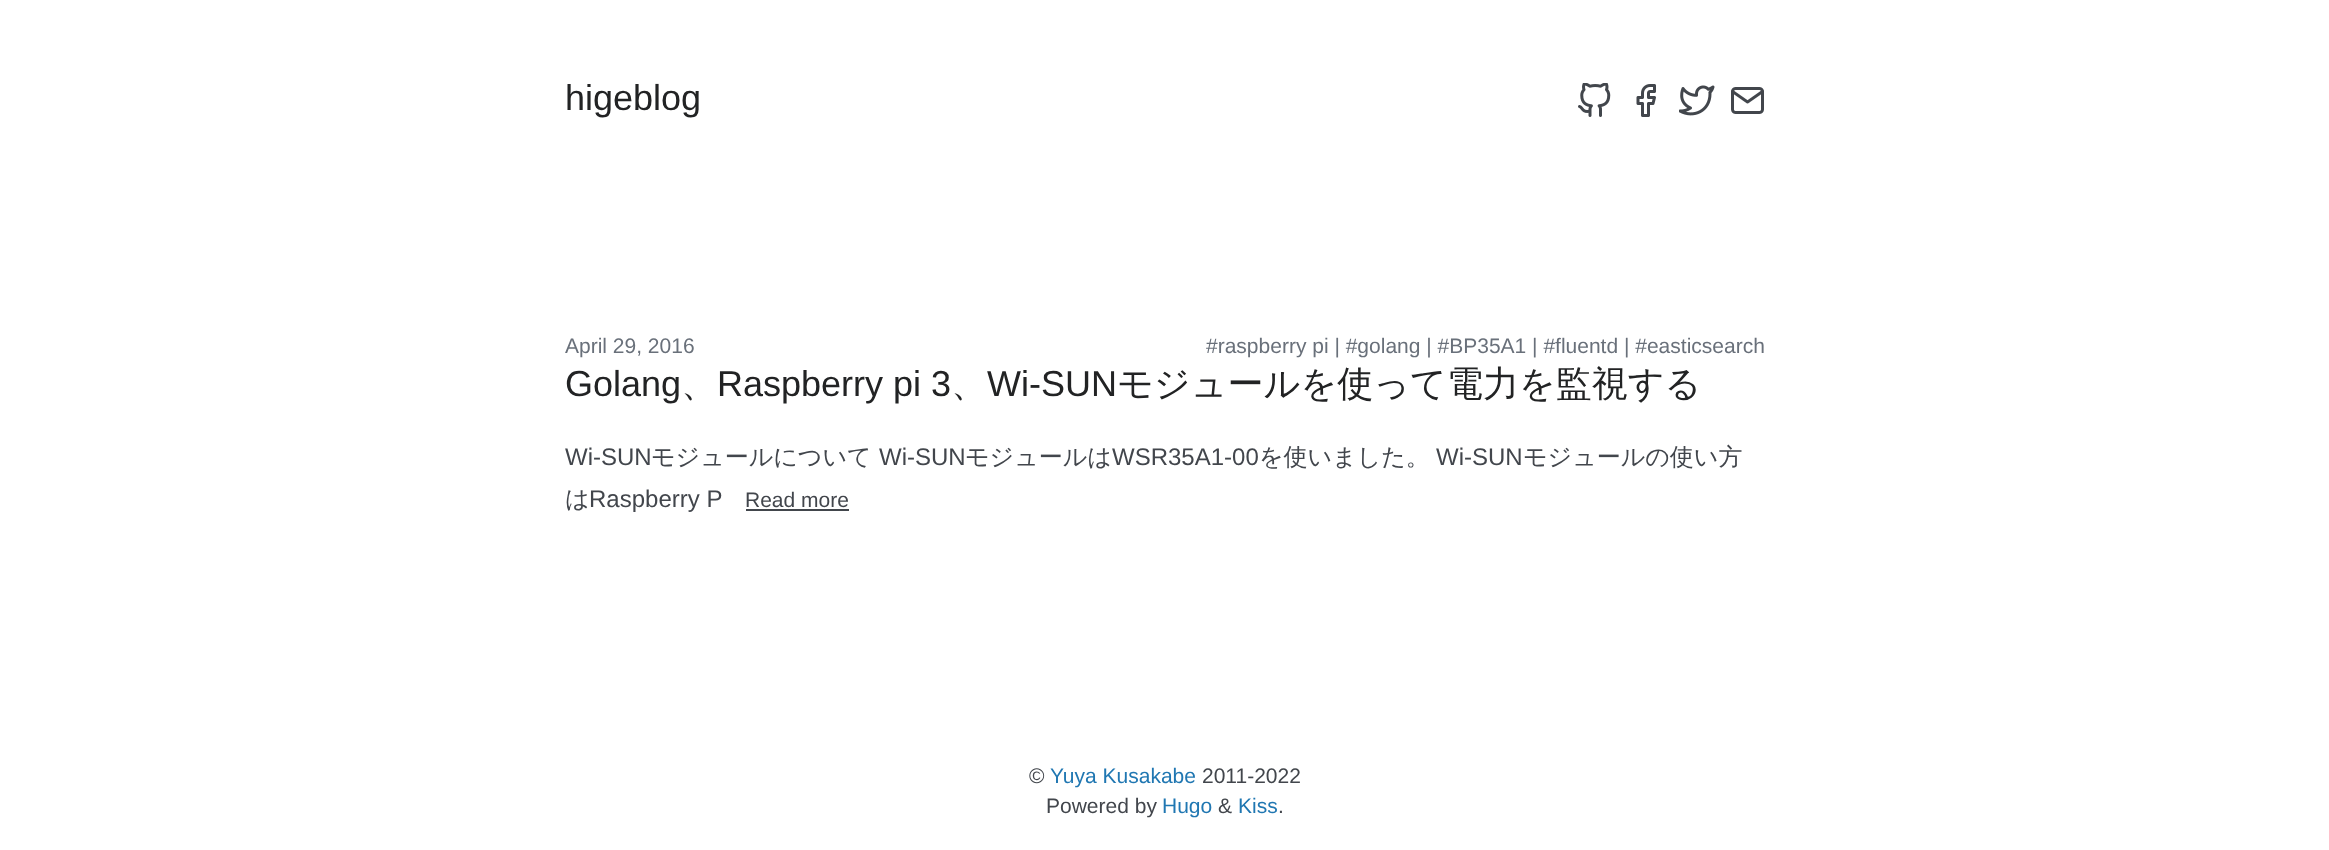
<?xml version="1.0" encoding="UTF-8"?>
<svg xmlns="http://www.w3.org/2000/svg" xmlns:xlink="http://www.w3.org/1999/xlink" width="2329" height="850">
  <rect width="100%" height="100%" fill="#ffffff" />
  <image x="1578" y="83" width="33" height="34" xlink:href="image1.png" />
  <image x="1636" y="84" width="20" height="33" xlink:href="image2.png" />
  <image x="1679" y="85" width="36" height="31" xlink:href="image3.png" />
  <image x="1731" y="87" width="33" height="27" xlink:href="image4.png" />
  <rect x="746" y="509" width="103" height="2" fill="#42464c" />
  <text x="565" y="110" style="font-family: Liberation Sans; font-size: 36px; fill: #222324">higeblog</text>
  <text x="565" y="353" style="font-family: Liberation Sans; font-size: 21px; fill: #69707a">April 29, 2016</text>
  <text x="1206" y="353" style="font-family: Liberation Sans; font-size: 21px; fill: #69707a">#raspberry pi | #golang | #BP35A1 | #fluentd | #easticsearch</text>
  <text x="565" y="396" style="font-family: Liberation Sans; font-size: 36px; fill: #222324">Golang</text>
  <text x="681" y="396" style="font-family: WenQuanYi Zen Hei; font-size: 36px; font-weight: 500; fill: #222324">、</text>
  <text x="717" y="396" style="font-family: Liberation Sans; font-size: 36px; fill: #222324">Raspberry pi 3</text>
  <text x="951" y="396" style="font-family: WenQuanYi Zen Hei; font-size: 36px; font-weight: 500; fill: #222324">、</text>
  <text x="987" y="396" style="font-family: Liberation Sans; font-size: 36px; fill: #222324">Wi-SUN</text>
  <text x="1117" y="396" style="font-family: WenQuanYi Zen Hei; font-size: 36px; font-weight: 500; fill: #222324">モジュールを使って電力を監視する</text>
  <text x="565" y="465" style="font-family: Liberation Sans; font-size: 24px; fill: #42464c">Wi-SUN</text>
  <text x="651" y="465" style="font-family: WenQuanYi Zen Hei; font-size: 24px; font-weight: 500; fill: #42464c">モジュールについて</text>
  <text x="879" y="465" style="font-family: Liberation Sans; font-size: 24px; fill: #42464c">Wi-SUN</text>
  <text x="965" y="465" style="font-family: WenQuanYi Zen Hei; font-size: 24px; font-weight: 500; fill: #42464c">モジュールは</text>
  <text x="1112" y="465" style="font-family: Liberation Sans; font-size: 24px; fill: #42464c">WSR35A1-00</text>
  <text x="1259" y="465" style="font-family: WenQuanYi Zen Hei; font-size: 24px; font-weight: 500; fill: #42464c">を使いました。</text>
  <text x="1436" y="465" style="font-family: Liberation Sans; font-size: 24px; fill: #42464c">Wi-SUN</text>
  <text x="1523" y="465" style="font-family: WenQuanYi Zen Hei; font-size: 24px; font-weight: 500; fill: #42464c">モジュールの使い方</text>
  <text x="565" y="507" style="font-family: WenQuanYi Zen Hei; font-size: 24px; font-weight: 500; fill: #42464c">は</text>
  <text x="589" y="507" style="font-family: Liberation Sans; font-size: 24px; fill: #42464c">Raspberry P</text>
  <text x="745" y="507" style="font-family: Liberation Sans; font-size: 21px; fill: #42464c">Read more</text>
  <text x="1029" y="783" style="font-family: Liberation Sans; font-size: 21px; fill: #42464c">©</text>
  <text x="1050" y="783" style="font-family: Liberation Sans; font-size: 21px; fill: #2077b2">Yuya Kusakabe</text>
  <text x="1202" y="783" style="font-family: Liberation Sans; font-size: 21px; fill: #42464c">2011-2022</text>
  <text x="1046" y="813" style="font-family: Liberation Sans; font-size: 21px; fill: #42464c">Powered by</text>
  <text x="1162" y="813" style="font-family: Liberation Sans; font-size: 21px; fill: #2077b2">Hugo</text>
  <text x="1218" y="813" style="font-family: Liberation Sans; font-size: 21px; fill: #42464c">&amp;</text>
  <text x="1238" y="813" style="font-family: Liberation Sans; font-size: 21px; fill: #2077b2">Kiss</text>
  <text x="1278" y="813" style="font-family: Liberation Sans; font-size: 21px; fill: #42464c">.</text>
</svg>
